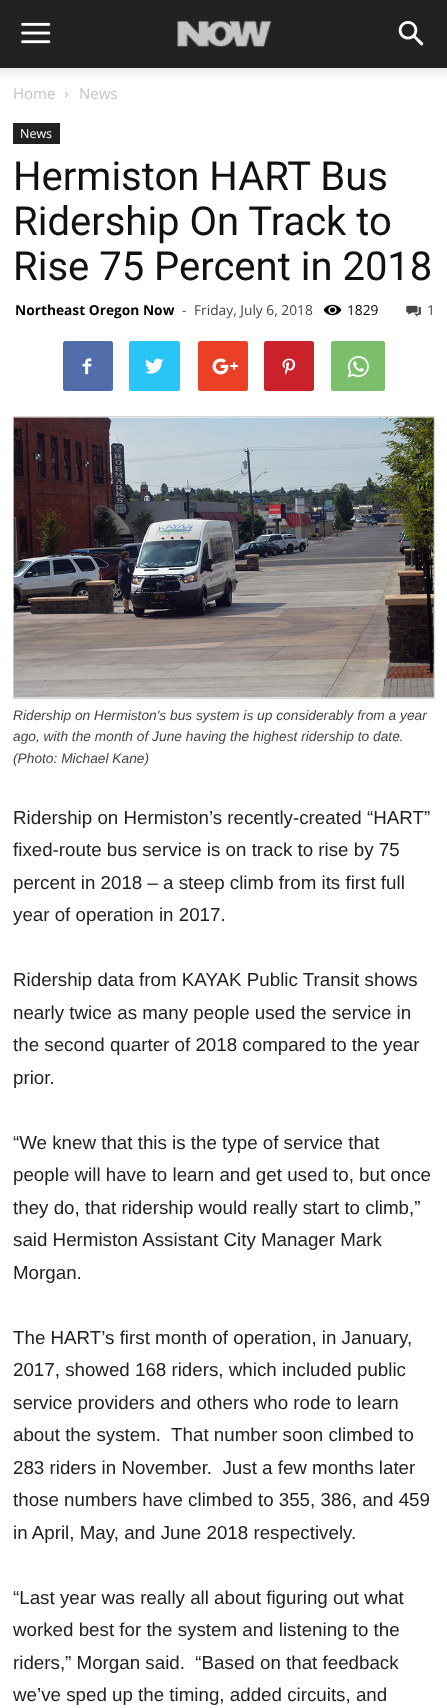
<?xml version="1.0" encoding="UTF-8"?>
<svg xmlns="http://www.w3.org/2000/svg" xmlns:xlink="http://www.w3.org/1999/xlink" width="447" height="1708">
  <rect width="100%" height="100%" fill="#ffffff" />
  <rect width="447" height="68" fill="#222222" />
  <image x="21" y="22" width="30" height="22" xlink:href="image1.png" />
  <image x="177" y="21" width="95" height="26" xlink:href="image2.png" />
  <image x="398" y="21" width="26" height="25" xlink:href="image3.png" />
  <image x="0" y="68" width="447" height="10" xlink:href="image4.png" />
  <image x="65" y="91" width="4" height="7" xlink:href="image5.png" />
  <rect x="13" y="123" width="47" height="21" fill="#222222" />
  <image x="323" y="304" width="19" height="12" xlink:href="image6.png" />
  <image x="406" y="305" width="15" height="12" xlink:href="image7.png" />
  <rect x="63" y="341" width="50" height="50" rx="2.5" fill="#516eab" />
  <image x="82" y="358" width="10" height="17" xlink:href="image8.png" />
  <rect x="129" y="341" width="51" height="50" rx="2.5" fill="#29c5f6" />
  <image x="145" y="358" width="19" height="16" xlink:href="image9.png" />
  <rect x="198" y="341" width="50" height="50" rx="2.5" fill="#eb4026" />
  <image x="212" y="358" width="26" height="17" xlink:href="image10.png" />
  <rect x="264" y="341" width="50" height="50" rx="2.5" fill="#ca212a" />
  <image x="282" y="358" width="14" height="17" xlink:href="image11.png" />
  <rect x="331" y="341" width="54" height="50" rx="2.5" fill="#7bbf6a" />
  <image x="347" y="356" width="22" height="22" xlink:href="image12.png" />
  <rect x="13.5" y="416.5" width="421" height="282" fill="none" stroke="#d8d6d6" />
  <image x="13" y="417" width="421" height="281" xlink:href="image13.png" />
  <text x="13" y="99" style="font-family: Open Sans; font-size: 15px; fill: #c3c3c3">Home</text>
  <text x="79" y="99" style="font-family: Open Sans; font-size: 15px; fill: #c3c3c3">News</text>
  <text x="20" y="138" style="font-family: Open Sans; font-size: 12.5px; fill: #ffffff">News</text>
  <text x="13" y="190" style="font-family: Roboto; font-size: 40px; fill: #111111">Hermiston HART Bus</text>
  <text x="13" y="235" style="font-family: Roboto; font-size: 40px; fill: #111111">Ridership On Track to</text>
  <text x="13" y="280" style="font-family: Roboto; font-size: 40px; fill: #111111">Rise 75 Percent in 2018</text>
  <text x="15" y="315" style="font-family: Open Sans; font-size: 13.75px; font-weight: bold; fill: #000000">Northeast Oregon Now</text>
  <text x="182" y="315" style="font-family: Open Sans; font-size: 13.75px; fill: #444444">-</text>
  <text x="194" y="315" style="font-family: Open Sans; font-size: 13.75px; fill: #444444">Friday, July 6, 2018</text>
  <text x="347" y="315" style="font-family: Open Sans; font-size: 13.75px; fill: #000000">1829</text>
  <text x="427" y="315" style="font-family: Open Sans; font-size: 13.75px; fill: #444444">1</text>
  <text x="13" y="720" style="font-family: Liberation Sans; font-size: 13.75px; font-style: italic; fill: #444444">Ridership on Hermiston's bus system is up considerably from a year</text>
  <text x="13" y="741" style="font-family: Liberation Sans; font-size: 13.75px; font-style: italic; fill: #444444">ago, with the month of June having the highest ridership to date.</text>
  <text x="13" y="763" style="font-family: Liberation Sans; font-size: 13.75px; font-style: italic; fill: #444444">(Photo: Michael Kane)</text>
  <text x="13" y="824" style="font-family: Liberation Sans; font-size: 18.75px; fill: #222222">Ridership on Hermiston’s recently-created “HART”</text>
  <text x="13" y="856" style="font-family: Liberation Sans; font-size: 18.75px; fill: #222222">fixed-route bus service is on track to rise by 75</text>
  <text x="13" y="889" style="font-family: Liberation Sans; font-size: 18.75px; fill: #222222">percent in 2018 – a steep climb from its first full</text>
  <text x="13" y="921" style="font-family: Liberation Sans; font-size: 18.75px; fill: #222222">year of operation in 2017.</text>
  <text x="13" y="986" style="font-family: Liberation Sans; font-size: 18.75px; fill: #222222">Ridership data from KAYAK Public Transit shows</text>
  <text x="13" y="1019" style="font-family: Liberation Sans; font-size: 18.75px; fill: #222222">nearly twice as many people used the service in</text>
  <text x="13" y="1051" style="font-family: Liberation Sans; font-size: 18.75px; fill: #222222">the second quarter of 2018 compared to the year</text>
  <text x="13" y="1084" style="font-family: Liberation Sans; font-size: 18.75px; fill: #222222">prior.</text>
  <text x="13" y="1149" style="font-family: Liberation Sans; font-size: 18.75px; fill: #222222">“We knew that this is the type of service that</text>
  <text x="13" y="1181" style="font-family: Liberation Sans; font-size: 18.75px; fill: #222222">people will have to learn and get used to, but once</text>
  <text x="13" y="1214" style="font-family: Liberation Sans; font-size: 18.75px; fill: #222222">they do, that ridership would really start to climb,”</text>
  <text x="13" y="1246" style="font-family: Liberation Sans; font-size: 18.75px; fill: #222222">said Hermiston Assistant City Manager Mark</text>
  <text x="13" y="1279" style="font-family: Liberation Sans; font-size: 18.75px; fill: #222222">Morgan.</text>
  <text x="13" y="1344" style="font-family: Liberation Sans; font-size: 18.75px; fill: #222222">The HART’s first month of operation, in January,</text>
  <text x="13" y="1376" style="font-family: Liberation Sans; font-size: 18.75px; fill: #222222">2017, showed 168 riders, which included public</text>
  <text x="13" y="1409" style="font-family: Liberation Sans; font-size: 18.75px; fill: #222222">service providers and others who rode to learn</text>
  <text x="13" y="1441" style="font-family: Liberation Sans; font-size: 18.75px; fill: #222222" xml:space="preserve">about the system.  That number soon climbed to</text>
  <text x="13" y="1474" style="font-family: Liberation Sans; font-size: 18.75px; fill: #222222" xml:space="preserve">283 riders in November.  Just a few months later</text>
  <text x="13" y="1506" style="font-family: Liberation Sans; font-size: 18.75px; fill: #222222">those numbers have climbed to 355, 386, and 459</text>
  <text x="13" y="1539" style="font-family: Liberation Sans; font-size: 18.75px; fill: #222222">in April, May, and June 2018 respectively.</text>
  <text x="13" y="1604" style="font-family: Liberation Sans; font-size: 18.75px; fill: #222222">“Last year was really all about figuring out what</text>
  <text x="13" y="1636" style="font-family: Liberation Sans; font-size: 18.75px; fill: #222222">worked best for the system and listening to the</text>
  <text x="13" y="1669" style="font-family: Liberation Sans; font-size: 18.75px; fill: #222222" xml:space="preserve">riders,” Morgan said.  “Based on that feedback</text>
  <text x="13" y="1701" style="font-family: Liberation Sans; font-size: 18.75px; fill: #222222">we’ve sped up the timing, added circuits, and</text>
</svg>
